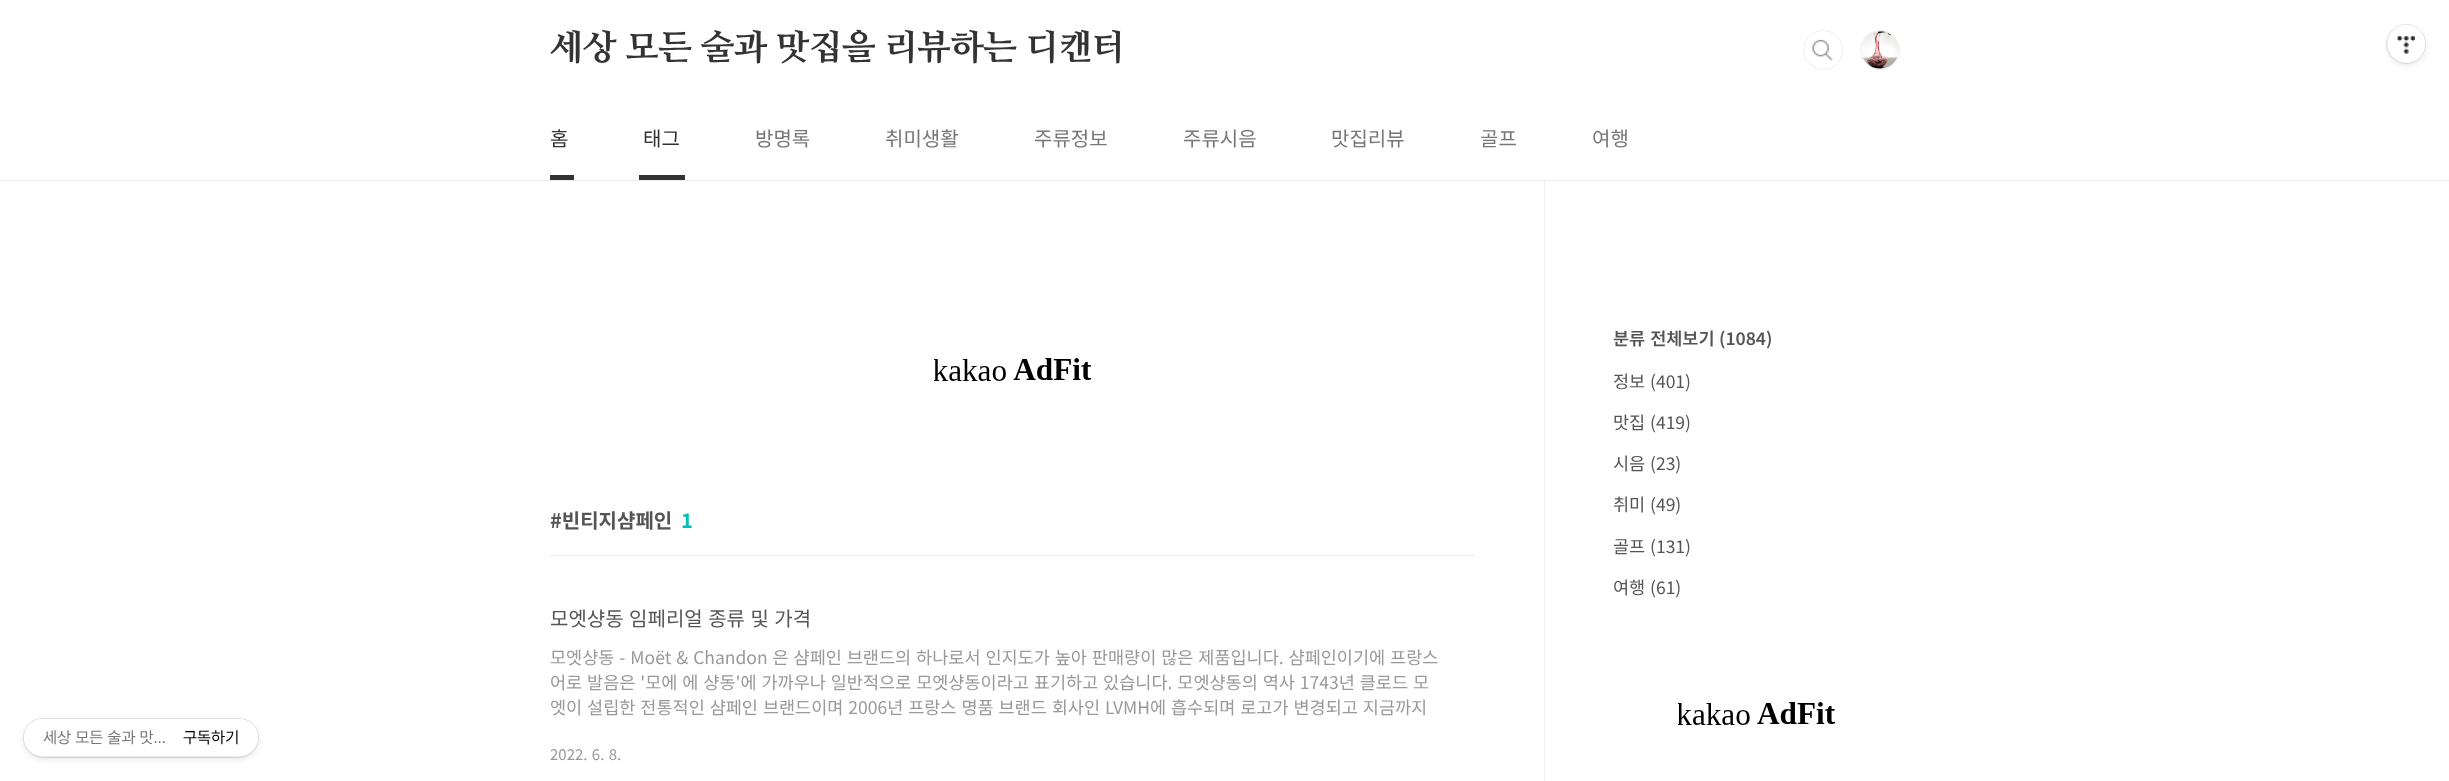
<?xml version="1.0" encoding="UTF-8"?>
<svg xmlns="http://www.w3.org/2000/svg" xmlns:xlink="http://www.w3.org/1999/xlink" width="2449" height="781">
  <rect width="100%" height="100%" fill="#ffffff" />
  <rect x="24" y="721" width="234" height="38" rx="19" fill="#000000" fill-opacity="0.1" filter="blur(3px)" />
  <rect x="23.5" y="718.5" width="235" height="39" rx="19.5" fill="none" stroke="#000000" stroke-opacity="0.1" />
  <rect x="24" y="719" width="234" height="37" rx="18.5" fill="#ffffff" />
  <rect y="180" width="2449" height="1" fill="#eeeeee" />
  <rect x="1804.5" y="31.5" width="36" height="37" rx="18" fill="none" stroke="#eeeeee" />
  <circle cx="1823" cy="50" r="20" fill="#ffffff" />
  <image x="1812" y="39" width="21" height="22" xlink:href="image1.png" />
  <circle cx="1823" cy="50" r="19.5" fill="none" stroke="#eeeeee" />
  <circle cx="1880" cy="50" r="19.5" fill="none" stroke="#eeeeee" />
  <image x="1862" y="31" width="37" height="38" xlink:href="image2.png" />
  <rect x="550" y="175" width="24" height="5" fill="#333333" />
  <rect x="639" y="175" width="46" height="5" fill="#333333" />
  <rect x="1544" y="181" width="1" height="600" fill="#eeeeee" />
  <image x="1678" y="702" width="157" height="23" xlink:href="image3.png" />
  <image x="934" y="358" width="157" height="23" xlink:href="image4.png" />
  <rect x="550" y="555" width="925" height="1" fill="#eeeeee" />
  <rect x="2388" y="28" width="37" height="37" rx="18.5" fill="#000000" fill-opacity="0.1" filter="blur(3px)" />
  <circle cx="2406" cy="44" r="19.5" fill="none" stroke="#000000" stroke-opacity="0.1" />
  <rect x="2388" y="25" width="37" height="38" rx="18.5" fill="#ffffff" />
  <image x="2397" y="35" width="18" height="19" xlink:href="image5.png" />
  <text x="43" y="743" style="font-family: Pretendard; font-size: 16.25px; fill: #777777">세상 모든 술과 맛…</text>
  <text x="183" y="743" style="font-family: Pretendard; font-size: 16.25px; fill: #000000">구독하기</text>
  <text x="550" y="59" style="font-family: NanumMyeongjo; font-size: 35px; font-weight: 800; letter-spacing: -0.25px; fill: #333333">세상 모든 술과 맛집을 리뷰하는 디캔터</text>
  <text x="550" y="146" style="font-family: Noto Sans KR; font-size: 20px; fill: #333333">홈</text>
  <text x="643" y="146" style="font-family: Noto Sans KR; font-size: 20px; fill: #333333">태그</text>
  <text x="755" y="146" style="font-family: Noto Sans KR; font-size: 20px; fill: #777777">방명록</text>
  <text x="885" y="146" style="font-family: Noto Sans KR; font-size: 20px; fill: #777777">취미생활</text>
  <text x="1034" y="146" style="font-family: Noto Sans KR; font-size: 20px; fill: #777777">주류정보</text>
  <text x="1183" y="146" style="font-family: Noto Sans KR; font-size: 20px; fill: #777777">주류시음</text>
  <text x="1331" y="146" style="font-family: Noto Sans KR; font-size: 20px; fill: #777777">맛집리뷰</text>
  <text x="1480" y="146" style="font-family: Noto Sans KR; font-size: 20px; fill: #777777">골프</text>
  <text x="1592" y="146" style="font-family: Noto Sans KR; font-size: 20px; fill: #777777">여행</text>
  <text x="1613" y="345" word-spacing="1" style="font-family: Noto Sans KR; font-size: 17.5px; font-weight: 600; fill: #555555">분류 전체보기</text>
  <text x="1719" y="345" style="font-family: Noto Sans KR; font-size: 17.5px; font-weight: 600; fill: #555555">(1084)</text>
  <text x="1613" y="388" style="font-family: Noto Sans KR; font-size: 17.5px; fill: #555555">정보</text>
  <text x="1650" y="388" style="font-family: Noto Sans KR; font-size: 17.5px; fill: #555555">(401)</text>
  <text x="1613" y="429" style="font-family: Noto Sans KR; font-size: 17.5px; fill: #555555">맛집</text>
  <text x="1650" y="429" style="font-family: Noto Sans KR; font-size: 17.5px; fill: #555555">(419)</text>
  <text x="1613" y="470" style="font-family: Noto Sans KR; font-size: 17.5px; fill: #555555">시음</text>
  <text x="1650" y="470" style="font-family: Noto Sans KR; font-size: 17.5px; fill: #555555">(23)</text>
  <text x="1613" y="511" style="font-family: Noto Sans KR; font-size: 17.5px; fill: #555555">취미</text>
  <text x="1650" y="511" style="font-family: Noto Sans KR; font-size: 17.5px; fill: #555555">(49)</text>
  <text x="1613" y="553" style="font-family: Noto Sans KR; font-size: 17.5px; fill: #555555">골프</text>
  <text x="1650" y="553" style="font-family: Noto Sans KR; font-size: 17.5px; fill: #555555">(131)</text>
  <text x="1613" y="594" style="font-family: Noto Sans KR; font-size: 17.5px; fill: #555555">여행</text>
  <text x="1650" y="594" style="font-family: Noto Sans KR; font-size: 17.5px; fill: #555555">(61)</text>
  <text x="550" y="528" style="font-family: Noto Sans KR; font-size: 20px; font-weight: bold; fill: #555555">#빈티지샴페인</text>
  <text x="681" y="528" style="font-family: Noto Sans KR; font-size: 20px; font-weight: bold; fill: #04beb8">1</text>
  <text x="550" y="626" word-spacing="1" style="font-family: Noto Sans KR; font-size: 20px; fill: #555555">모엣샹동 임페리얼 종류 및 가격</text>
  <text x="550" y="664" word-spacing="1" style="font-family: Noto Sans KR; font-size: 17.5px; fill: #999999">모엣샹동 - Moët &amp; Chandon 은 샴페인 브랜드의 하나로서 인지도가 높아 판매량이 많은 제품입니다. 샴페인이기에 프랑스</text>
  <text x="550" y="689" word-spacing="1" style="font-family: Noto Sans KR; font-size: 17.5px; fill: #999999">어로 발음은 '모에 에 샹동'에 가까우나 일반적으로 모엣샹동이라고 표기하고 있습니다. 모엣샹동의 역사 1743년 클로드 모</text>
  <text x="550" y="714" word-spacing="1" style="font-family: Noto Sans KR; font-size: 17.5px; fill: #999999">엣이 설립한 전통적인 샴페인 브랜드이며 2006년 프랑스 명품 브랜드 회사인 LVMH에 흡수되며 로고가 변경되고 지금까지</text>
  <text x="550" y="760" word-spacing="1" style="font-family: Noto Sans KR; font-size: 15px; fill: #999999">2022. 6. 8.</text>
</svg>
